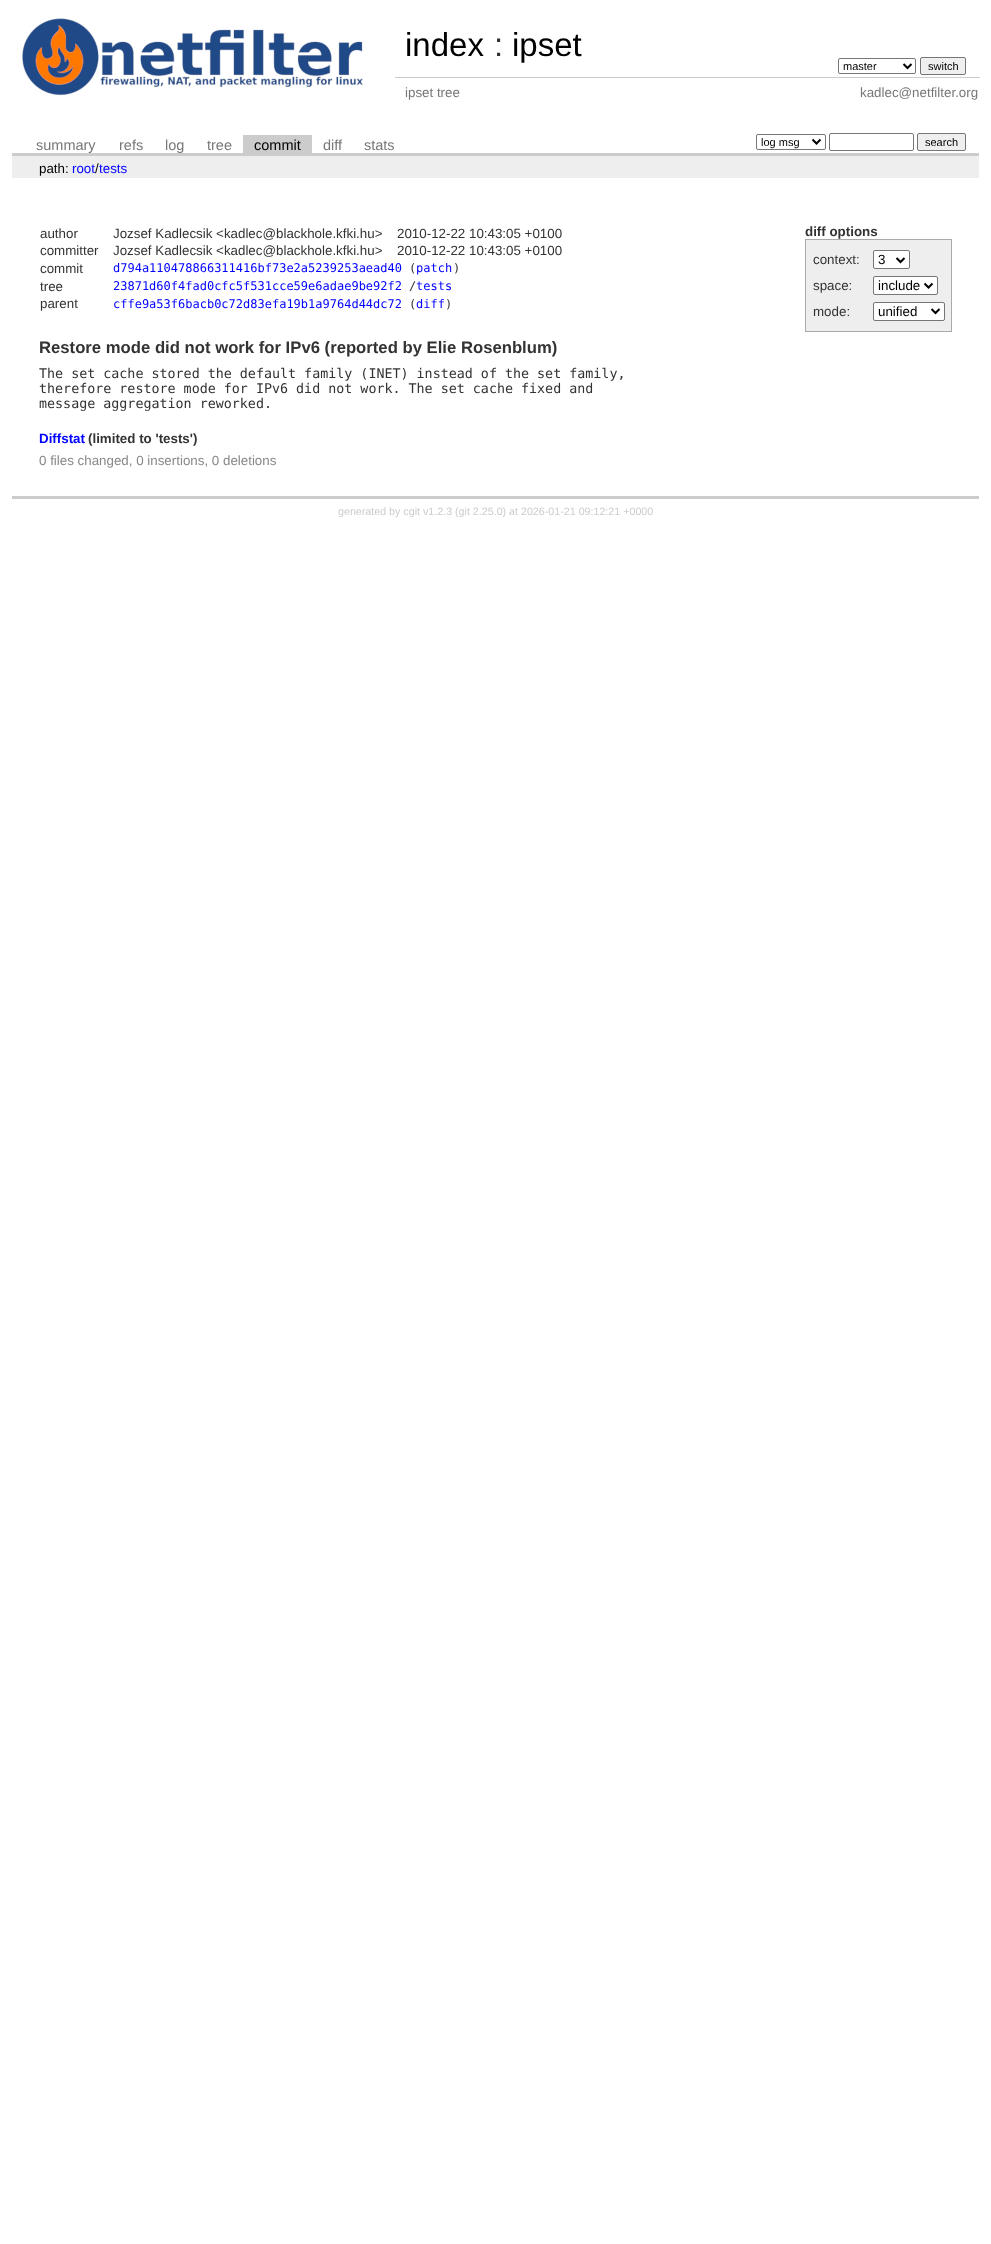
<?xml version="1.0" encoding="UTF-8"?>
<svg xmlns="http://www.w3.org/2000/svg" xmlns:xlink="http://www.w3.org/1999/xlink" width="991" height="2244">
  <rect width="100%" height="100%" fill="#ffffff" />
  <image x="22" y="18" width="341" height="78" xlink:href="image1.png" />
  <rect x="838.5" y="58.5" width="77" height="15" rx="1.5" fill="none" stroke="#767676" />
  <path d="M 903.5 64 l 4 4 l 4 -4" fill="none" stroke="#000000" stroke-width="2" />
  <rect x="920.5" y="57.5" width="45" height="17" rx="1.5" fill="#efefef" stroke="#767676" />
  <rect x="395" y="77" width="585" height="1" fill="#cccccc" />
  <rect x="12" y="153" width="967" height="3" fill="#cccccc" />
  <rect x="243" y="135" width="69" height="18" fill="#cccccc" />
  <rect x="756.5" y="134.5" width="69" height="15" rx="1.5" fill="none" stroke="#767676" />
  <path d="M 812.5 139.5 l 4 4 l 4 -4" fill="none" stroke="#000000" stroke-width="2" />
  <rect x="829.5" y="133.5" width="84" height="17" rx="1.5" fill="none" stroke="#767676" />
  <rect x="917.5" y="133.5" width="48" height="17" rx="1.5" fill="#efefef" stroke="#767676" />
  <rect x="12" y="156" width="967" height="22" fill="#eeeeee" />
  <rect x="12" y="496" width="967" height="3" fill="#cccccc" />
  <rect x="806" y="240" width="145" height="91" fill="#eeeeee" />
  <rect x="805" y="239" width="147" height="1" fill="#aaaaaa" />
  <rect x="951" y="239" width="1" height="93" fill="#aaaaaa" />
  <rect x="805" y="331" width="147" height="1" fill="#aaaaaa" />
  <rect x="805" y="239" width="1" height="93" fill="#aaaaaa" />
  <rect x="873.5" y="250.5" width="36" height="18" rx="1.5" fill="#ffffff" stroke="#767676" />
  <path d="M 896.5 258 l 4 4 l 4 -4" fill="none" stroke="#000000" stroke-width="2" />
  <rect x="873.5" y="276.5" width="64" height="18" rx="1.5" fill="#ffffff" stroke="#767676" />
  <path d="M 924.5 283.5 l 4 4 l 4 -4" fill="none" stroke="#000000" stroke-width="2" />
  <rect x="873.5" y="302.5" width="71" height="18" rx="1.5" fill="#ffffff" stroke="#767676" />
  <path d="M 931.5 309 l 4 4 l 4 -4" fill="none" stroke="#000000" stroke-width="2" />
  <text x="405" y="56" style="font-family: Liberation Sans; font-size: 33px; fill: #000000">index</text>
  <text x="494" y="56" style="font-family: Liberation Sans; font-size: 33px; fill: #333333">:</text>
  <text x="512" y="56" style="font-family: Liberation Sans; font-size: 33px; fill: #000000">ipset</text>
  <text x="843" y="70" style="font-family: Liberation Sans; font-size: 11px; fill: #000000">master</text>
  <text x="928" y="70" style="font-family: Liberation Sans; font-size: 11px; fill: #000000">switch</text>
  <text x="405" y="97" style="font-family: Liberation Sans; font-size: 13.35px; fill: #777777">ipset tree</text>
  <text x="860" y="97" style="font-family: Liberation Sans; font-size: 13.35px; fill: #777777">kadlec@netfilter.org</text>
  <text x="36" y="150" style="font-family: Liberation Sans; font-size: 14.5px; fill: #777777">summary</text>
  <text x="119" y="150" style="font-family: Liberation Sans; font-size: 14.5px; fill: #777777">refs</text>
  <text x="165" y="150" style="font-family: Liberation Sans; font-size: 14.5px; fill: #777777">log</text>
  <text x="207" y="150" style="font-family: Liberation Sans; font-size: 14.5px; fill: #777777">tree</text>
  <text x="254" y="150" style="font-family: Liberation Sans; font-size: 14.5px; fill: #000000">commit</text>
  <text x="323" y="150" style="font-family: Liberation Sans; font-size: 14.5px; fill: #777777">diff</text>
  <text x="364" y="150" style="font-family: Liberation Sans; font-size: 14.5px; fill: #777777">stats</text>
  <text x="761" y="146" style="font-family: Liberation Sans; font-size: 11px; fill: #000000">log msg</text>
  <text x="925" y="146" style="font-family: Liberation Sans; font-size: 11px; fill: #000000">search</text>
  <text x="39" y="173" style="font-family: Liberation Sans; font-size: 13.35px; fill: #000000">path:</text>
  <text x="72" y="173" style="font-family: Liberation Sans; font-size: 13.35px; fill: #0000ff">root</text>
  <text x="95" y="173" style="font-family: Liberation Sans; font-size: 13.35px; fill: #000000">/</text>
  <text x="99" y="173" style="font-family: Liberation Sans; font-size: 13.35px; fill: #0000ff">tests</text>
  <text x="40" y="238" style="font-family: Liberation Sans; font-size: 13.35px; fill: #333333">author</text>
  <text x="113" y="238" style="font-family: Liberation Sans; font-size: 13.35px; fill: #333333">Jozsef Kadlecsik &lt;kadlec@blackhole.kfki.hu&gt;</text>
  <text x="397" y="238" style="font-family: Liberation Sans; font-size: 13.35px; fill: #333333">2010-12-22 10:43:05 +0100</text>
  <text x="40" y="255" style="font-family: Liberation Sans; font-size: 13.35px; fill: #333333">committer</text>
  <text x="113" y="255" style="font-family: Liberation Sans; font-size: 13.35px; fill: #333333">Jozsef Kadlecsik &lt;kadlec@blackhole.kfki.hu&gt;</text>
  <text x="397" y="255" style="font-family: Liberation Sans; font-size: 13.35px; fill: #333333">2010-12-22 10:43:05 +0100</text>
  <text x="40" y="273" style="font-family: Liberation Sans; font-size: 13.35px; fill: #333333">commit</text>
  <text x="113" y="272" style="font-family: DejaVu Sans Mono; font-size: 12px; fill: #0000ff">d794a110478866311416bf73e2a5239253aead40</text>
  <text x="409" y="272" style="font-family: DejaVu Sans Mono; font-size: 12px; fill: #333333">(</text>
  <text x="416" y="272" style="font-family: DejaVu Sans Mono; font-size: 12px; fill: #0000ff">patch</text>
  <text x="453" y="272" style="font-family: DejaVu Sans Mono; font-size: 12px; fill: #333333">)</text>
  <text x="40" y="291" style="font-family: Liberation Sans; font-size: 13.35px; fill: #333333">tree</text>
  <text x="113" y="290" style="font-family: DejaVu Sans Mono; font-size: 12px; fill: #0000ff">23871d60f4fad0cfc5f531cce59e6adae9be92f2</text>
  <text x="409" y="290" style="font-family: DejaVu Sans Mono; font-size: 12px; fill: #333333">/</text>
  <text x="416" y="290" style="font-family: DejaVu Sans Mono; font-size: 12px; fill: #0000ff">tests</text>
  <text x="40" y="308" style="font-family: Liberation Sans; font-size: 13.35px; fill: #333333">parent</text>
  <text x="113" y="308" style="font-family: DejaVu Sans Mono; font-size: 12px; fill: #0000ff">cffe9a53f6bacb0c72d83efa19b1a9764d44dc72</text>
  <text x="409" y="308" style="font-family: DejaVu Sans Mono; font-size: 12px; fill: #333333">(</text>
  <text x="416" y="308" style="font-family: DejaVu Sans Mono; font-size: 12px; fill: #0000ff">diff</text>
  <text x="445" y="308" style="font-family: DejaVu Sans Mono; font-size: 12px; fill: #333333">)</text>
  <text x="805" y="236" style="font-family: Liberation Sans; font-size: 13.35px; font-weight: bold; fill: #333333">diff options</text>
  <text x="813" y="264" style="font-family: Liberation Sans; font-size: 13.35px; fill: #333333">context:</text>
  <text x="878" y="264" style="font-family: Liberation Sans; font-size: 13.35px; fill: #000000">3</text>
  <text x="813" y="290" style="font-family: Liberation Sans; font-size: 13.35px; fill: #333333">space:</text>
  <text x="878" y="290" style="font-family: Liberation Sans; font-size: 13.35px; fill: #000000">include</text>
  <text x="813" y="316" style="font-family: Liberation Sans; font-size: 13.35px; fill: #333333">mode:</text>
  <text x="878" y="316" style="font-family: Liberation Sans; font-size: 13.35px; fill: #000000">unified</text>
  <text x="39" y="353" style="font-family: Liberation Sans; font-size: 16.7px; font-weight: bold; fill: #333333">Restore mode did not work for IPv6 (reported by Elie Rosenblum)</text>
  <text x="39" y="378" style="font-family: DejaVu Sans Mono; font-size: 13.35px; fill: #333333">The set cache stored the default family (INET) instead of the set family,</text>
  <text x="39" y="393" style="font-family: DejaVu Sans Mono; font-size: 13.35px; fill: #333333">therefore restore mode for IPv6 did not work. The set cache fixed and</text>
  <text x="39" y="408" style="font-family: DejaVu Sans Mono; font-size: 13.35px; fill: #333333">message aggregation reworked.</text>
  <text x="39" y="443" style="font-family: Liberation Sans; font-size: 13.35px; font-weight: bold; fill: #0000ff">Diffstat</text>
  <text x="88" y="443" style="font-family: Liberation Sans; font-size: 13.35px; font-weight: bold; fill: #333333">(limited to 'tests')</text>
  <text x="39" y="465" style="font-family: Liberation Sans; font-size: 13.35px; fill: #888888">0 files changed, 0 insertions, 0 deletions</text>
  <text x="338" y="515" style="font-family: Liberation Sans; font-size: 10.7px; fill: #cccccc">generated by cgit v1.2.3 (git 2.25.0) at 2026-01-21 09:12:21 +0000</text>
</svg>
